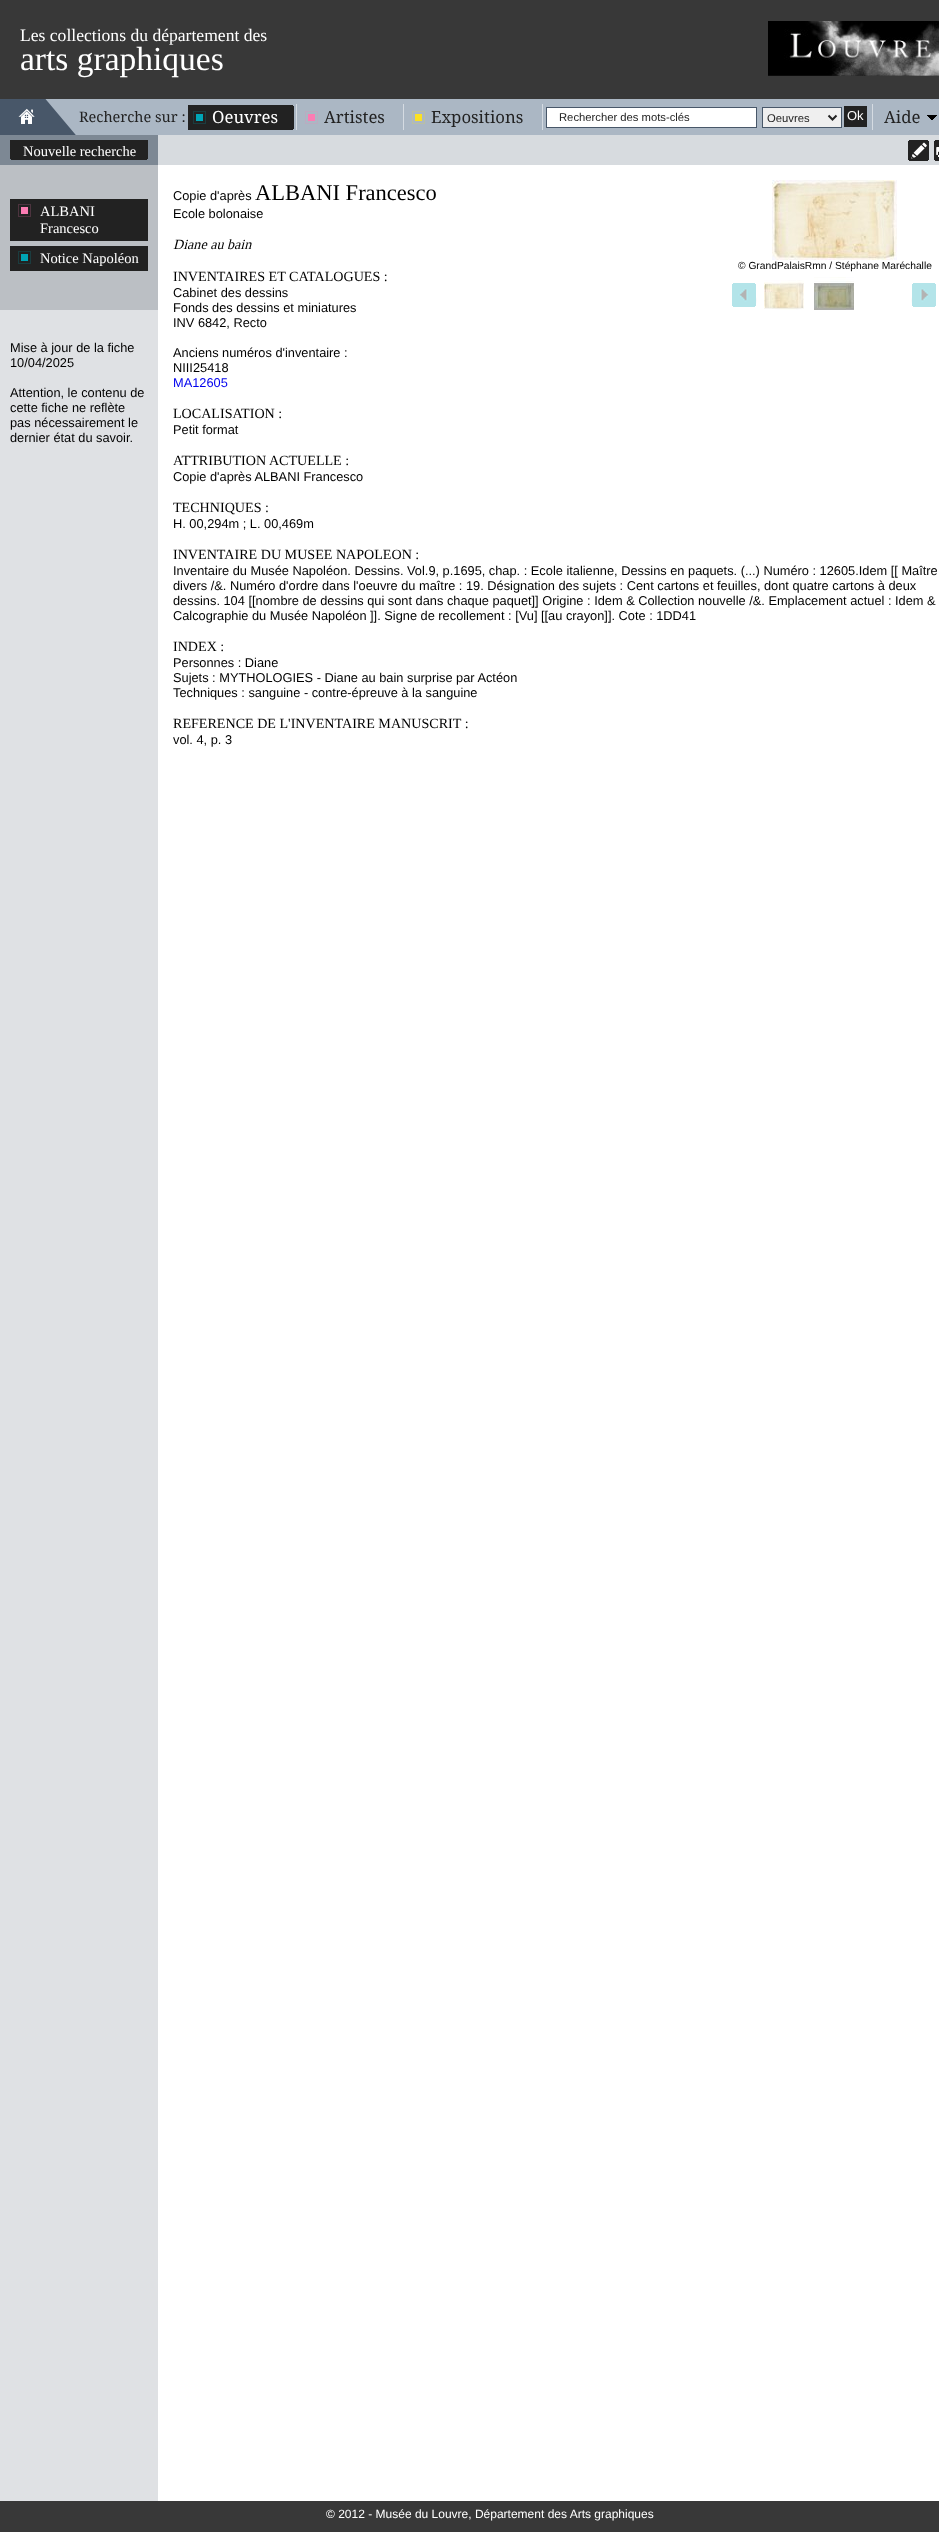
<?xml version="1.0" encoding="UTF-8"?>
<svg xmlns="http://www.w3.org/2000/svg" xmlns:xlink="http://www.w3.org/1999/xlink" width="939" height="2532">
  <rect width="100%" height="100%" fill="#ffffff" />
  <rect width="939" height="99" fill="#383838" />
  <image x="768" y="21" width="171" height="55" xlink:href="image1.png" />
  <rect x="76" y="99" width="863" height="36" fill="#abb7c4" />
  <image x="0" y="99" width="76" height="36" xlink:href="image2.png" />
  <image x="18" y="108" width="17" height="16" xlink:href="image3.png" />
  <rect x="296" y="104" width="1" height="26" fill="#d5dbe2" />
  <rect x="188" y="105" width="105" height="25" fill="#222222" />
  <image x="293" y="105" width="1" height="25" xlink:href="image4.png" />
  <image x="193" y="111" width="13" height="13" xlink:href="image5.png" />
  <rect x="403" y="104" width="1" height="26" fill="#d5dbe2" />
  <image x="305" y="111" width="13" height="13" xlink:href="image6.png" />
  <rect x="542" y="104" width="1" height="26" fill="#d5dbe2" />
  <image x="412" y="111" width="13" height="13" xlink:href="image7.png" />
  <rect x="546.5" y="107.5" width="210" height="20" fill="#ffffff" stroke="#485769" />
  <rect x="762.5" y="107.5" width="79" height="20" fill="#efefef" stroke="#485769" />
  <path d="M 828.5 115.5 l 4 4 l 4 -4" fill="none" stroke="#222222" stroke-width="2" />
  <rect x="844" y="106" width="23" height="21" fill="#222222" />
  <rect x="872" y="104" width="1" height="26" fill="#d5dbe2" />
  <image x="927" y="115" width="10" height="5" xlink:href="image8.png" />
  <rect y="310" width="158" height="2191" fill="#dfe1e4" />
  <rect y="135" width="158" height="30" fill="#7d8894" />
  <rect x="10" y="140" width="138" height="18" fill="#222222" />
  <image x="10" y="158" width="138" height="2" xlink:href="image9.png" />
  <rect y="165" width="158" height="145" fill="#bbbfc4" />
  <rect x="10" y="199" width="138" height="42" fill="#222222" />
  <image x="18" y="204" width="13" height="13" xlink:href="image10.png" />
  <rect x="10" y="246" width="138" height="25" fill="#222222" />
  <image x="18" y="251" width="13" height="13" xlink:href="image5.png" />
  <rect x="158" y="135" width="781" height="30" fill="#d7dbdf" />
  <image x="908" y="140" width="21" height="21" xlink:href="image11.png" />
  <image x="934" y="140" width="5" height="21" xlink:href="image12.png" />
  <image x="772" y="180" width="125" height="80" xlink:href="image13.png" />
  <image x="732" y="283" width="25" height="24" xlink:href="image14.png" />
  <image x="764" y="280" width="40" height="30" xlink:href="image15.png" />
  <image x="814" y="277" width="40" height="33" xlink:href="image16.png" />
  <image x="911" y="283" width="25" height="24" xlink:href="image17.png" />
  <rect y="2501" width="939" height="31" fill="#383838" />
  <text x="20" y="41" style="font-family: Tinos; font-size: 17.6px; fill: #ffffff">Les collections du département des</text>
  <text x="20" y="70" style="font-family: Tinos; font-size: 33.5px; fill: #ffffff">arts graphiques</text>
  <text x="79" y="122" style="font-family: Droid Serif; font-size: 14.5px; fill: #222222">Recherche sur :</text>
  <text x="212" y="123" style="font-family: Droid Serif; font-size: 16.75px; fill: #ffffff">Oeuvres</text>
  <text x="324" y="123" style="font-family: Droid Serif; font-size: 16.75px; fill: #222222">Artistes</text>
  <text x="431" y="123" style="font-family: Droid Serif; font-size: 16.75px; fill: #222222">Expositions</text>
  <text x="559" y="121" style="font-family: Liberation Sans; font-size: 11.25px; fill: #222222">Rechercher des mots-clés</text>
  <text x="767" y="122" style="font-family: Liberation Sans; font-size: 11.25px; fill: #222222">Oeuvres</text>
  <text x="847" y="120" style="font-family: Liberation Sans; font-size: 13px; fill: #ffffff">Ok</text>
  <text x="884" y="123" style="font-family: Droid Serif; font-size: 16.75px; fill: #222222">Aide</text>
  <text x="23" y="156" style="font-family: Tinos; font-size: 14.5px; fill: #ffffff">Nouvelle recherche</text>
  <text x="40" y="216" style="font-family: Tinos; font-size: 14.5px; fill: #ffffff">ALBANI</text>
  <text x="40" y="233" style="font-family: Tinos; font-size: 14.5px; fill: #ffffff">Francesco</text>
  <text x="40" y="263" style="font-family: Tinos; font-size: 14.5px; fill: #ffffff">Notice Napoléon</text>
  <text x="10" y="352" style="font-family: Liberation Sans; font-size: 12.8px; fill: #000000">Mise à jour de la fiche</text>
  <text x="10" y="367" style="font-family: Liberation Sans; font-size: 12.8px; fill: #000000">10/04/2025</text>
  <text x="10" y="397" style="font-family: Liberation Sans; font-size: 12.8px; fill: #000000">Attention, le contenu de</text>
  <text x="10" y="412" style="font-family: Liberation Sans; font-size: 12.8px; fill: #000000">cette fiche ne reflète</text>
  <text x="10" y="427" style="font-family: Liberation Sans; font-size: 12.8px; fill: #000000">pas nécessairement le</text>
  <text x="10" y="442" style="font-family: Liberation Sans; font-size: 12.8px; fill: #000000">dernier état du savoir.</text>
  <text x="173" y="200" style="font-family: Liberation Sans; font-size: 12.8px; fill: #000000">Copie d'après</text>
  <text x="255" y="200" style="font-family: Tinos; font-size: 22.5px; fill: #000000">ALBANI Francesco</text>
  <text x="173" y="218" style="font-family: Liberation Sans; font-size: 12.8px; fill: #000000">Ecole bolonaise</text>
  <text x="173" y="249" style="font-family: Tinos; font-size: 14.1px; font-style: italic; fill: #000000">Diane au bain</text>
  <text x="738" y="269" style="font-family: Liberation Sans; font-size: 10.25px; fill: #000000">© GrandPalaisRmn / Stéphane Maréchalle</text>
  <text x="173" y="281" style="font-family: Tinos; font-size: 14.1px; fill: #000000">INVENTAIRES ET CATALOGUES :</text>
  <text x="173" y="297" style="font-family: Liberation Sans; font-size: 12.8px; fill: #000000">Cabinet des dessins</text>
  <text x="173" y="312" style="font-family: Liberation Sans; font-size: 12.8px; fill: #000000">Fonds des dessins et miniatures</text>
  <text x="173" y="327" style="font-family: Liberation Sans; font-size: 12.8px; fill: #000000">INV 6842, Recto</text>
  <text x="173" y="357" style="font-family: Liberation Sans; font-size: 12.8px; fill: #000000">Anciens numéros d'inventaire :</text>
  <text x="173" y="372" style="font-family: Liberation Sans; font-size: 12.8px; fill: #000000">NIII25418</text>
  <text x="173" y="387" style="font-family: Liberation Sans; font-size: 12.8px; fill: #0000ee">MA12605</text>
  <text x="173" y="418" style="font-family: Tinos; font-size: 14.1px; fill: #000000">LOCALISATION :</text>
  <text x="173" y="434" style="font-family: Liberation Sans; font-size: 12.8px; fill: #000000">Petit format</text>
  <text x="173" y="465" style="font-family: Tinos; font-size: 14.1px; fill: #000000">ATTRIBUTION ACTUELLE :</text>
  <text x="173" y="481" style="font-family: Liberation Sans; font-size: 12.8px; fill: #000000">Copie d'après ALBANI Francesco</text>
  <text x="173" y="512" style="font-family: Tinos; font-size: 14.1px; fill: #000000">TECHNIQUES :</text>
  <text x="173" y="528" style="font-family: Liberation Sans; font-size: 12.8px; fill: #000000">H. 00,294m ; L. 00,469m</text>
  <text x="173" y="559" style="font-family: Tinos; font-size: 14.1px; fill: #000000">INVENTAIRE DU MUSEE NAPOLEON :</text>
  <text x="173" y="575" style="font-family: Liberation Sans; font-size: 12.8px; fill: #000000">Inventaire du Musée Napoléon. Dessins. Vol.9, p.1695, chap. : Ecole italienne, Dessins en paquets. (...) Numéro : 12605.Idem [[ Maître</text>
  <text x="173" y="590" style="font-family: Liberation Sans; font-size: 12.8px; fill: #000000">divers /&amp;. Numéro d'ordre dans l'oeuvre du maître : 19. Désignation des sujets : Cent cartons et feuilles, dont quatre cartons à deux</text>
  <text x="173" y="605" style="font-family: Liberation Sans; font-size: 12.8px; fill: #000000">dessins. 104 [[nombre de dessins qui sont dans chaque paquet]] Origine : Idem &amp; Collection nouvelle /&amp;. Emplacement actuel : Idem &amp;</text>
  <text x="173" y="620" style="font-family: Liberation Sans; font-size: 12.8px; fill: #000000">Calcographie du Musée Napoléon ]]. Signe de recollement : [Vu] [[au crayon]]. Cote : 1DD41</text>
  <text x="173" y="651" style="font-family: Tinos; font-size: 14.1px; fill: #000000">INDEX :</text>
  <text x="173" y="667" style="font-family: Liberation Sans; font-size: 12.8px; fill: #000000">Personnes : Diane</text>
  <text x="173" y="682" style="font-family: Liberation Sans; font-size: 12.8px; fill: #000000">Sujets : MYTHOLOGIES - Diane au bain surprise par Actéon</text>
  <text x="173" y="697" style="font-family: Liberation Sans; font-size: 12.8px; fill: #000000">Techniques : sanguine - contre-épreuve à la sanguine</text>
  <text x="173" y="728" style="font-family: Tinos; font-size: 14.1px; fill: #000000">REFERENCE DE L'INVENTAIRE MANUSCRIT :</text>
  <text x="173" y="744" style="font-family: Liberation Sans; font-size: 12.8px; fill: #000000">vol. 4, p. 3</text>
  <text x="326" y="2518" style="font-family: Liberation Sans; font-size: 12px; fill: #ffffff">© 2012 - Musée du Louvre, Département des Arts graphiques</text>
</svg>
